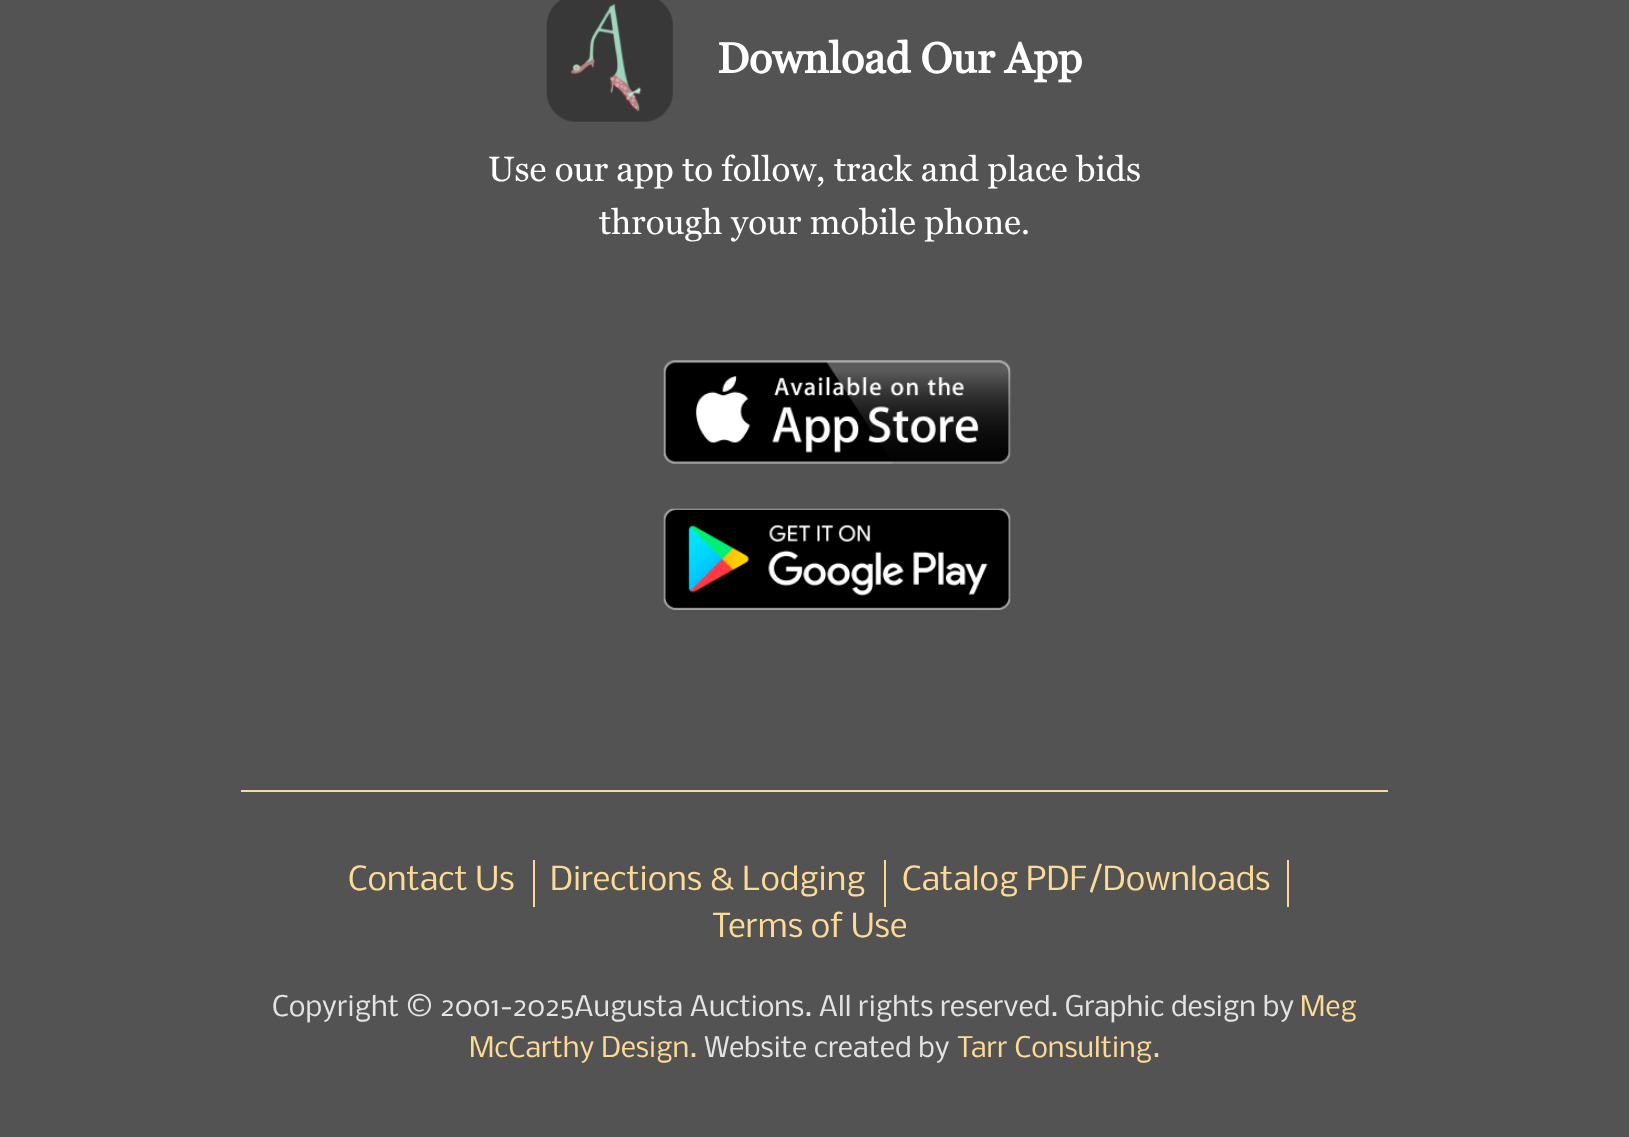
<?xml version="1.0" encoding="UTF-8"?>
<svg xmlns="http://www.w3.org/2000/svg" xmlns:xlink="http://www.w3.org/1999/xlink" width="1629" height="1137">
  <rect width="100%" height="100%" fill="#535353" />
  <image x="546" y="0" width="127" height="122" xlink:href="image1.png" />
  <image x="663" y="360" width="348" height="104" xlink:href="image2.png" />
  <image x="663" y="508" width="348" height="102" xlink:href="image3.png" />
  <rect x="241" y="790" width="1147" height="2" fill="#fdda96" />
  <rect x="533" y="860" width="2" height="47" fill="#fdda96" />
  <rect x="884" y="860" width="2" height="47" fill="#fdda96" />
  <rect x="1287" y="860" width="2" height="47" fill="#fdda96" />
  <text x="717" y="73" style="font-family: Georgia; font-size: 42.75px; font-weight: bold; fill: #ffffff">Download Our App</text>
  <text x="488" y="181" style="font-family: Georgia; font-size: 34.9px; fill: #ffffff">Use our app to follow, track and place bids</text>
  <text x="599" y="234" style="font-family: Georgia; font-size: 34.9px; fill: #ffffff">through your mobile phone.</text>
  <text x="348" y="890" style="font-family: Nobile; font-size: 31.5px; fill: #fdda96">Contact Us</text>
  <text x="550" y="890" style="font-family: Nobile; font-size: 31.5px; fill: #fdda96">Directions &amp; Lodging</text>
  <text x="902" y="890" style="font-family: Nobile; font-size: 31.5px; fill: #fdda96">Catalog PDF/Downloads</text>
  <text x="712" y="937" style="font-family: Nobile; font-size: 31.5px; fill: #fdda96">Terms of Use</text>
  <text x="272" y="1016" style="font-family: Nobile; font-size: 27px; fill: #e4e4e4">Copyright © 2001-2025Augusta Auctions. All rights reserved. Graphic design by</text>
  <text x="1300" y="1016" style="font-family: Nobile; font-size: 27px; fill: #fdda96">Meg</text>
  <text x="469" y="1057" style="font-family: Nobile; font-size: 27px; fill: #fdda96">McCarthy Design.</text>
  <text x="704" y="1057" style="font-family: Nobile; font-size: 27px; fill: #e4e4e4">Website created by</text>
  <text x="957" y="1057" style="font-family: Nobile; font-size: 27px; fill: #fdda96">Tarr Consulting.</text>
</svg>
